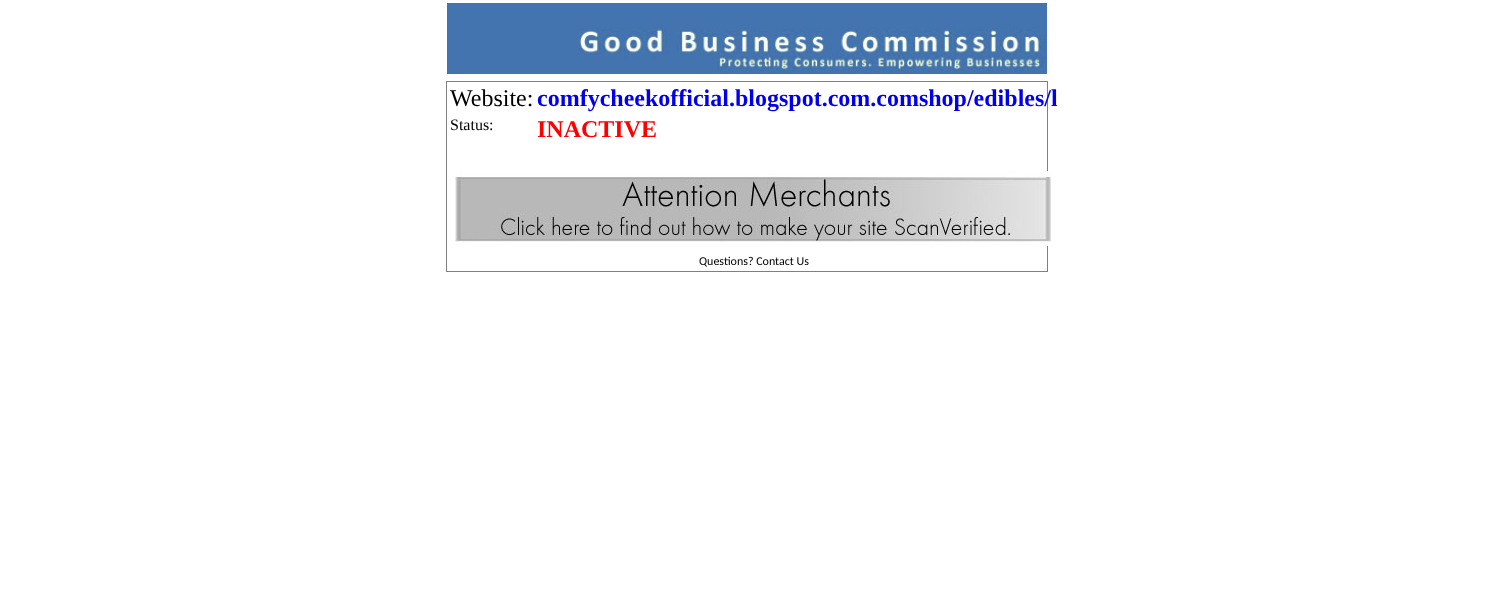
<?xml version="1.0" encoding="UTF-8"?>
<svg xmlns="http://www.w3.org/2000/svg" xmlns:xlink="http://www.w3.org/1999/xlink" width="1493" height="601">
  <rect width="100%" height="100%" fill="#ffffff" />
  <image x="447" y="3" width="600" height="71" xlink:href="image1.png" />
  <rect x="446.5" y="81.5" width="601" height="190" fill="none" stroke="#808080" />
  <image x="455" y="171" width="597" height="75" xlink:href="image2.png" />
  <text x="450" y="106" style="font-family: Liberation Serif; font-size: 24px; fill: #000000">Website:</text>
  <text x="537" y="106" style="font-family: Liberation Serif; font-size: 24px; font-weight: bold; fill: #0000ee">comfycheekofficial.blogspot.com.comshop/edibles/l</text>
  <text x="450" y="130" style="font-family: Liberation Serif; font-size: 16px; fill: #000000">Status:</text>
  <text x="537" y="137" style="font-family: Liberation Serif; font-size: 24px; font-weight: bold; fill: #ff0000">INACTIVE</text>
  <text x="699" y="265" style="font-family: Carlito; font-size: 12px; fill: #000000">Questions? Contact Us</text>
</svg>
